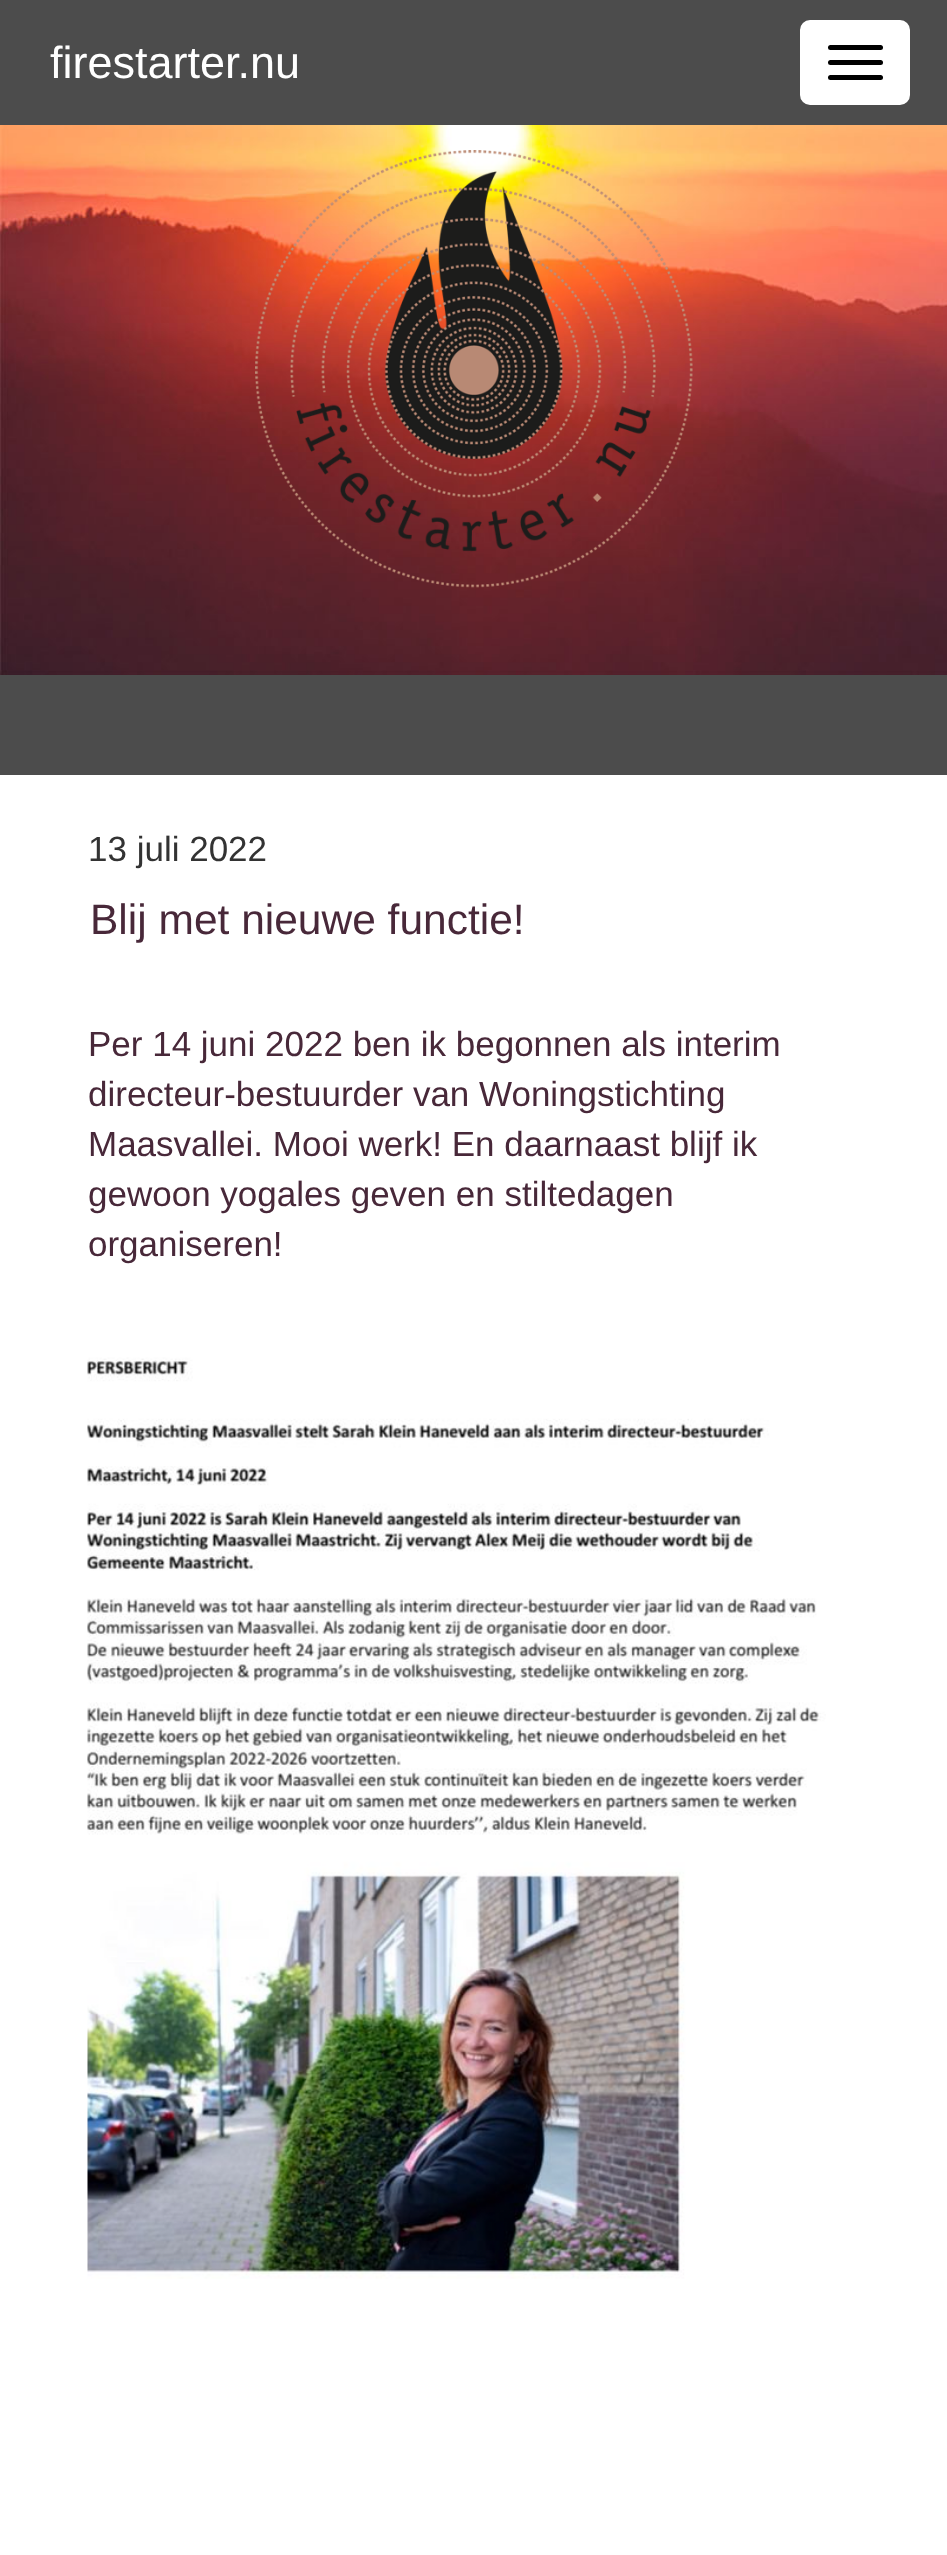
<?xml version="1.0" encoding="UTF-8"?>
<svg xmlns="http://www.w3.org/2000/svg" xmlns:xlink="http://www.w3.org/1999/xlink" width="947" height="2555">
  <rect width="100%" height="100%" fill="#4c4c4c" />
  <image x="0" y="125" width="947" height="550" xlink:href="image1.png" />
  <rect x="801.5" y="21.5" width="107" height="82" rx="8.5" fill="#ffffff" stroke="#ffffff" stroke-width="3" />
  <rect x="828" y="45" width="55" height="5" rx="2.5" fill="#000000" />
  <rect x="828" y="60" width="55" height="5" rx="2.5" fill="#000000" />
  <rect x="828" y="75" width="55" height="5" rx="2.5" fill="#000000" />
  <image x="255" y="150" width="438" height="438" xlink:href="image2.png" />
  <rect y="775" width="947" height="1780" fill="#ffffff" />
  <image x="87" y="1357" width="739" height="922" xlink:href="image3.png" />
  <text x="50" y="78" style="font-family: Liberation Sans; font-size: 45px; fill: #ffffff">firestarter.nu</text>
  <text x="88" y="861" style="font-family: Liberation Sans; font-size: 35px; fill: #333333">13 juli 2022</text>
  <text x="90" y="934" style="font-family: Liberation Sans; font-size: 42.5px; fill: #482839">Blij met nieuwe functie!</text>
  <text x="88" y="1056" style="font-family: Liberation Sans; font-size: 35px; fill: #482839">Per 14 juni 2022 ben ik begonnen als interim</text>
  <text x="88" y="1106" style="font-family: Liberation Sans; font-size: 35px; fill: #482839">directeur-bestuurder van Woningstichting</text>
  <text x="88" y="1156" style="font-family: Liberation Sans; font-size: 35px; fill: #482839">Maasvallei. Mooi werk! En daarnaast blijf ik</text>
  <text x="88" y="1206" style="font-family: Liberation Sans; font-size: 35px; fill: #482839">gewoon yogales geven en stiltedagen</text>
  <text x="88" y="1256" style="font-family: Liberation Sans; font-size: 35px; fill: #482839">organiseren!</text>
</svg>
